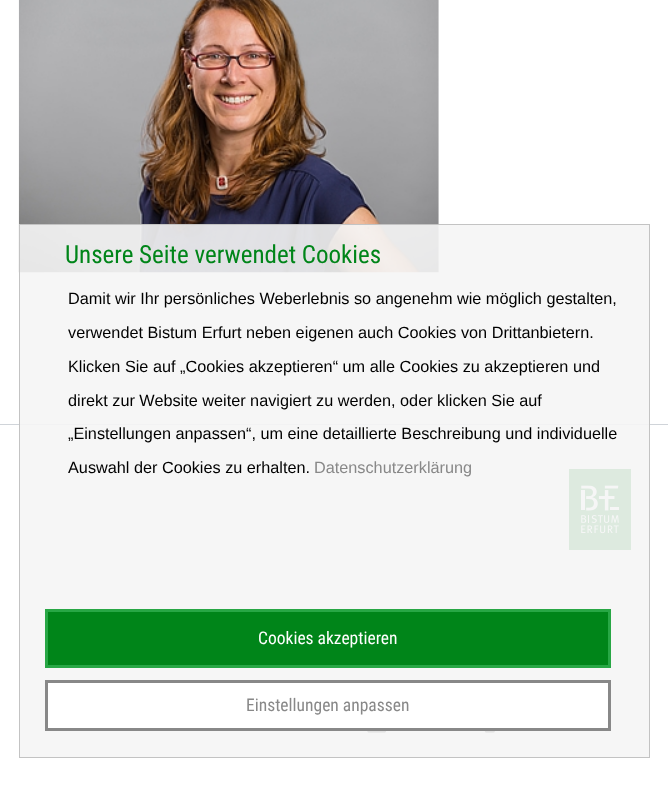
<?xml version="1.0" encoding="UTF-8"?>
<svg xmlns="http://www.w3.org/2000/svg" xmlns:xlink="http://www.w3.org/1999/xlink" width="668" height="795">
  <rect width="100%" height="100%" fill="#ffffff" />
  <image x="18" y="0" width="421" height="273" xlink:href="image1.png" />
  <rect y="424" width="668" height="1" fill="#d0d4d9" />
  <rect x="569" y="469" width="62" height="81" fill="#008519" />
  <image x="581" y="485" width="38" height="49" xlink:href="image2.png" />
  <image x="367" y="731" width="19" height="2" xlink:href="image3.png" />
  <image x="484" y="731" width="11" height="2" xlink:href="image4.png" />
  <rect x="19.5" y="224.5" width="630" height="533" fill="#f5f5f5" fill-opacity="0.9" stroke="#c3c3c3" />
  <rect x="46.5" y="610.5" width="563" height="56" fill="#008519" stroke="#28a745" stroke-width="3" />
  <rect x="46.5" y="681.5" width="563" height="48" fill="#ffffff" stroke="#888888" stroke-width="3" />
  <text x="65" y="263" style="font-family: Roboto Condensed; font-size: 25px; fill: #008519">Unsere Seite verwendet Cookies</text>
  <text x="68" y="304" style="font-family: Liberation Sans; font-size: 16.25px; fill: #000000">Damit wir Ihr persönliches Weberlebnis so angenehm wie möglich gestalten,</text>
  <text x="68" y="338" style="font-family: Liberation Sans; font-size: 16.25px; fill: #000000">verwendet Bistum Erfurt neben eigenen auch Cookies von Drittanbietern.</text>
  <text x="68" y="372" style="font-family: Liberation Sans; font-size: 16.25px; fill: #000000">Klicken Sie auf „Cookies akzeptieren“ um alle Cookies zu akzeptieren und</text>
  <text x="68" y="406" style="font-family: Liberation Sans; font-size: 16.25px; fill: #000000">direkt zur Website weiter navigiert zu werden, oder klicken Sie auf</text>
  <text x="68" y="439" style="font-family: Liberation Sans; font-size: 16.25px; fill: #000000">„Einstellungen anpassen“, um eine detaillierte Beschreibung und individuelle</text>
  <text x="68" y="473" style="font-family: Liberation Sans; font-size: 16.25px; fill: #000000">Auswahl der Cookies zu erhalten.</text>
  <text x="314" y="473" style="font-family: Liberation Sans; font-size: 16.25px; fill: #888888">Datenschutzerklärung</text>
  <text x="258" y="644" style="font-family: Roboto Condensed; font-size: 17.5px; fill: #ffffff">Cookies akzeptieren</text>
  <text x="246" y="711" style="font-family: Roboto Condensed; font-size: 17.5px; fill: #888888">Einstellungen anpassen</text>
</svg>
